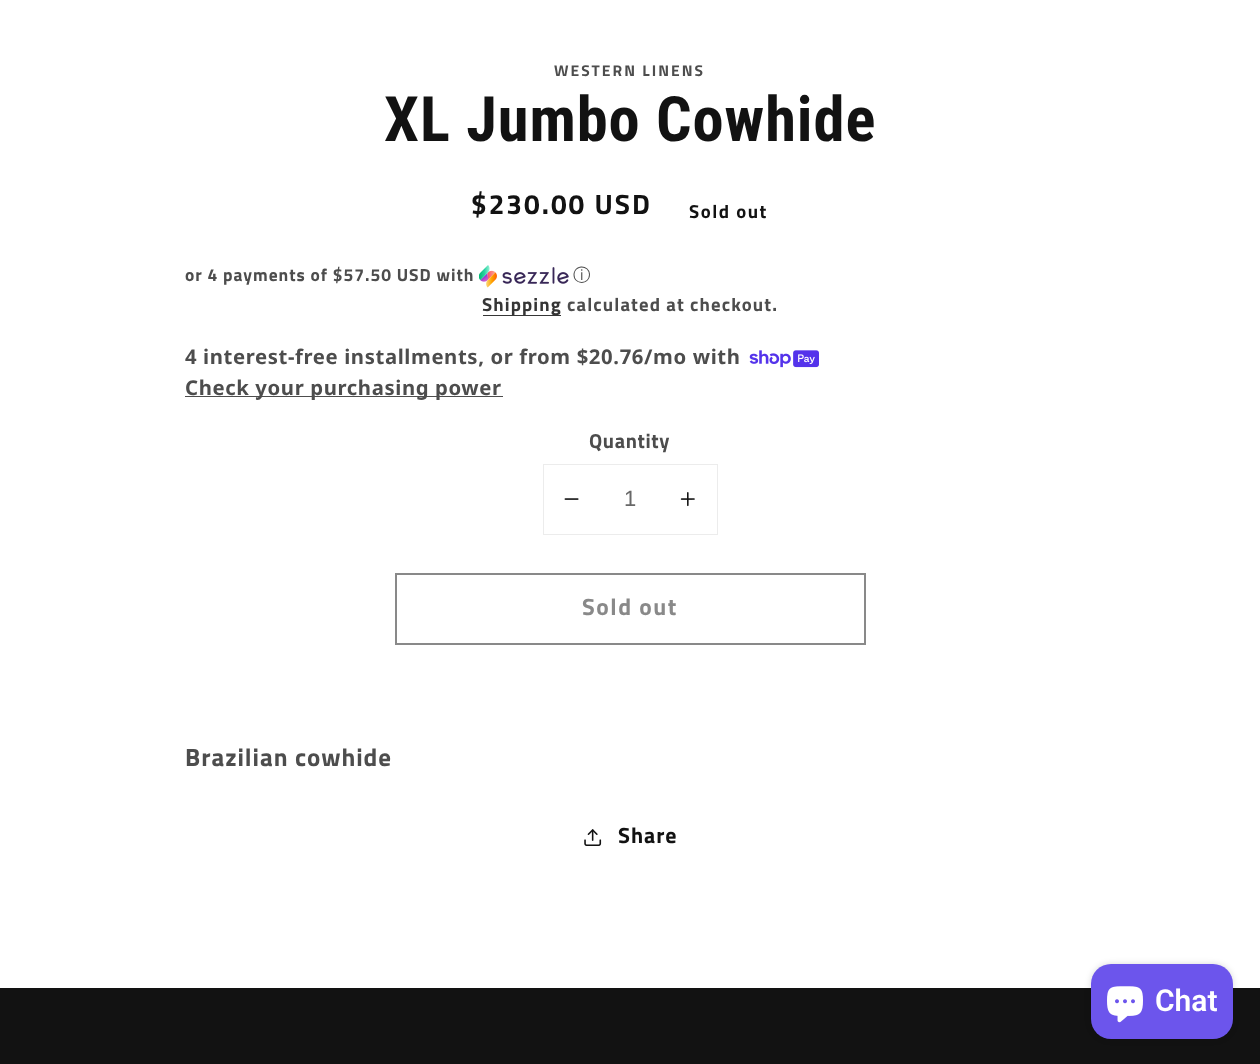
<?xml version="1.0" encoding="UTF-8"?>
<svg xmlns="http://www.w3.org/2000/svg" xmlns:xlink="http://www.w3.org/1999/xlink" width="1260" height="1064">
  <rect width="100%" height="100%" fill="#ffffff" />
  <image x="479" y="265" width="90" height="23" xlink:href="image1.png" />
  <rect x="483" y="315" width="78" height="1" fill="#363636" />
  <image x="749" y="350" width="70" height="18" xlink:href="image2.png" />
  <rect x="185" y="396" width="318" height="1" fill="#4d4d4d" />
  <rect x="543.5" y="464.5" width="174" height="70" fill="none" stroke="#ececec" />
  <image x="564" y="498" width="15" height="2" xlink:href="image3.png" />
  <image x="680" y="492" width="15" height="15" xlink:href="image4.png" />
  <rect x="396" y="574" width="469" height="70" fill="none" stroke="#898989" stroke-width="2" />
  <image x="584" y="829" width="18" height="17" xlink:href="image5.png" />
  <rect y="988" width="1260" height="76" fill="#121212" />
  <rect x="1091" y="964" width="142" height="75" rx="20" fill="#000000" fill-opacity="0.15" filter="blur(3px)" />
  <rect x="1091" y="964" width="142" height="75" rx="20" fill="#6c55ec" />
  <image x="1107" y="986" width="36" height="37" xlink:href="image6.png" />
  <text x="554" y="76" style="font-family: Titillium Web; font-size: 15.6px; font-weight: bold; letter-spacing: 2px; fill: #4d4d4d">WESTERN LINENS</text>
  <text x="384" y="141" style="font-family: Roboto Condensed; font-size: 62.5px; font-weight: bold; letter-spacing: 0.95px; fill: #121212">XL Jumbo Cowhide</text>
  <text x="471" y="214" style="font-family: Titillium Web; font-size: 28px; font-weight: bold; letter-spacing: 2px; fill: #121212">$230.00 USD</text>
  <text x="689" y="218" style="font-family: Titillium Web; font-size: 18.75px; font-weight: bold; letter-spacing: 1.5px; fill: #121212">Sold out</text>
  <text x="185" y="281" style="font-family: Titillium Web; font-size: 17.5px; font-weight: bold; letter-spacing: 0.95px; fill: #4d4d4d">or 4 payments of $57.50 USD with</text>
  <text x="573" y="281" style="font-family: WenQuanYi Zen Hei; font-size: 17.5px; font-weight: 500; letter-spacing: 0.95px; fill: #4d4d4d">ⓘ</text>
  <text x="482" y="311" style="font-family: Titillium Web; font-size: 18.75px; font-weight: bold; letter-spacing: 1.1px; fill: #353535">Shipping</text>
  <text x="567" y="311" style="font-family: Titillium Web; font-size: 18.75px; font-weight: bold; letter-spacing: 1.1px; fill: #4d4d4d">calculated at checkout.</text>
  <text x="185" y="364" style="font-family: Noto Sans; font-size: 20.3px; font-weight: bold; letter-spacing: 0.62px; fill: #4d4d4d">4 interest-free installments, or from $20.76/mo with</text>
  <text x="185" y="395" style="font-family: Noto Sans; font-size: 20.3px; font-weight: bold; letter-spacing: 0.62px; fill: #4d4d4d">Check your purchasing power</text>
  <text x="589" y="448" style="font-family: Titillium Web; font-size: 20.3px; font-weight: bold; letter-spacing: 0.62px; fill: #4d4d4d">Quantity</text>
  <text x="624" y="506" style="font-family: Liberation Sans; font-size: 22px; fill: #686868">1</text>
  <text x="582" y="615" style="font-family: Titillium Web; font-size: 23.5px; font-weight: bold; letter-spacing: 1.5px; fill: #898989">Sold out</text>
  <text x="185" y="766" style="font-family: Titillium Web; font-size: 25px; font-weight: bold; letter-spacing: 0.95px; fill: #4d4d4d">Brazilian cowhide</text>
  <text x="618" y="843" style="font-family: Titillium Web; font-size: 22px; font-weight: bold; letter-spacing: 0.95px; fill: #121212">Share</text>
  <text x="1155" y="1011" style="font-family: Roboto; font-size: 30px; font-weight: 600; fill: #ffffff">Chat</text>
</svg>
